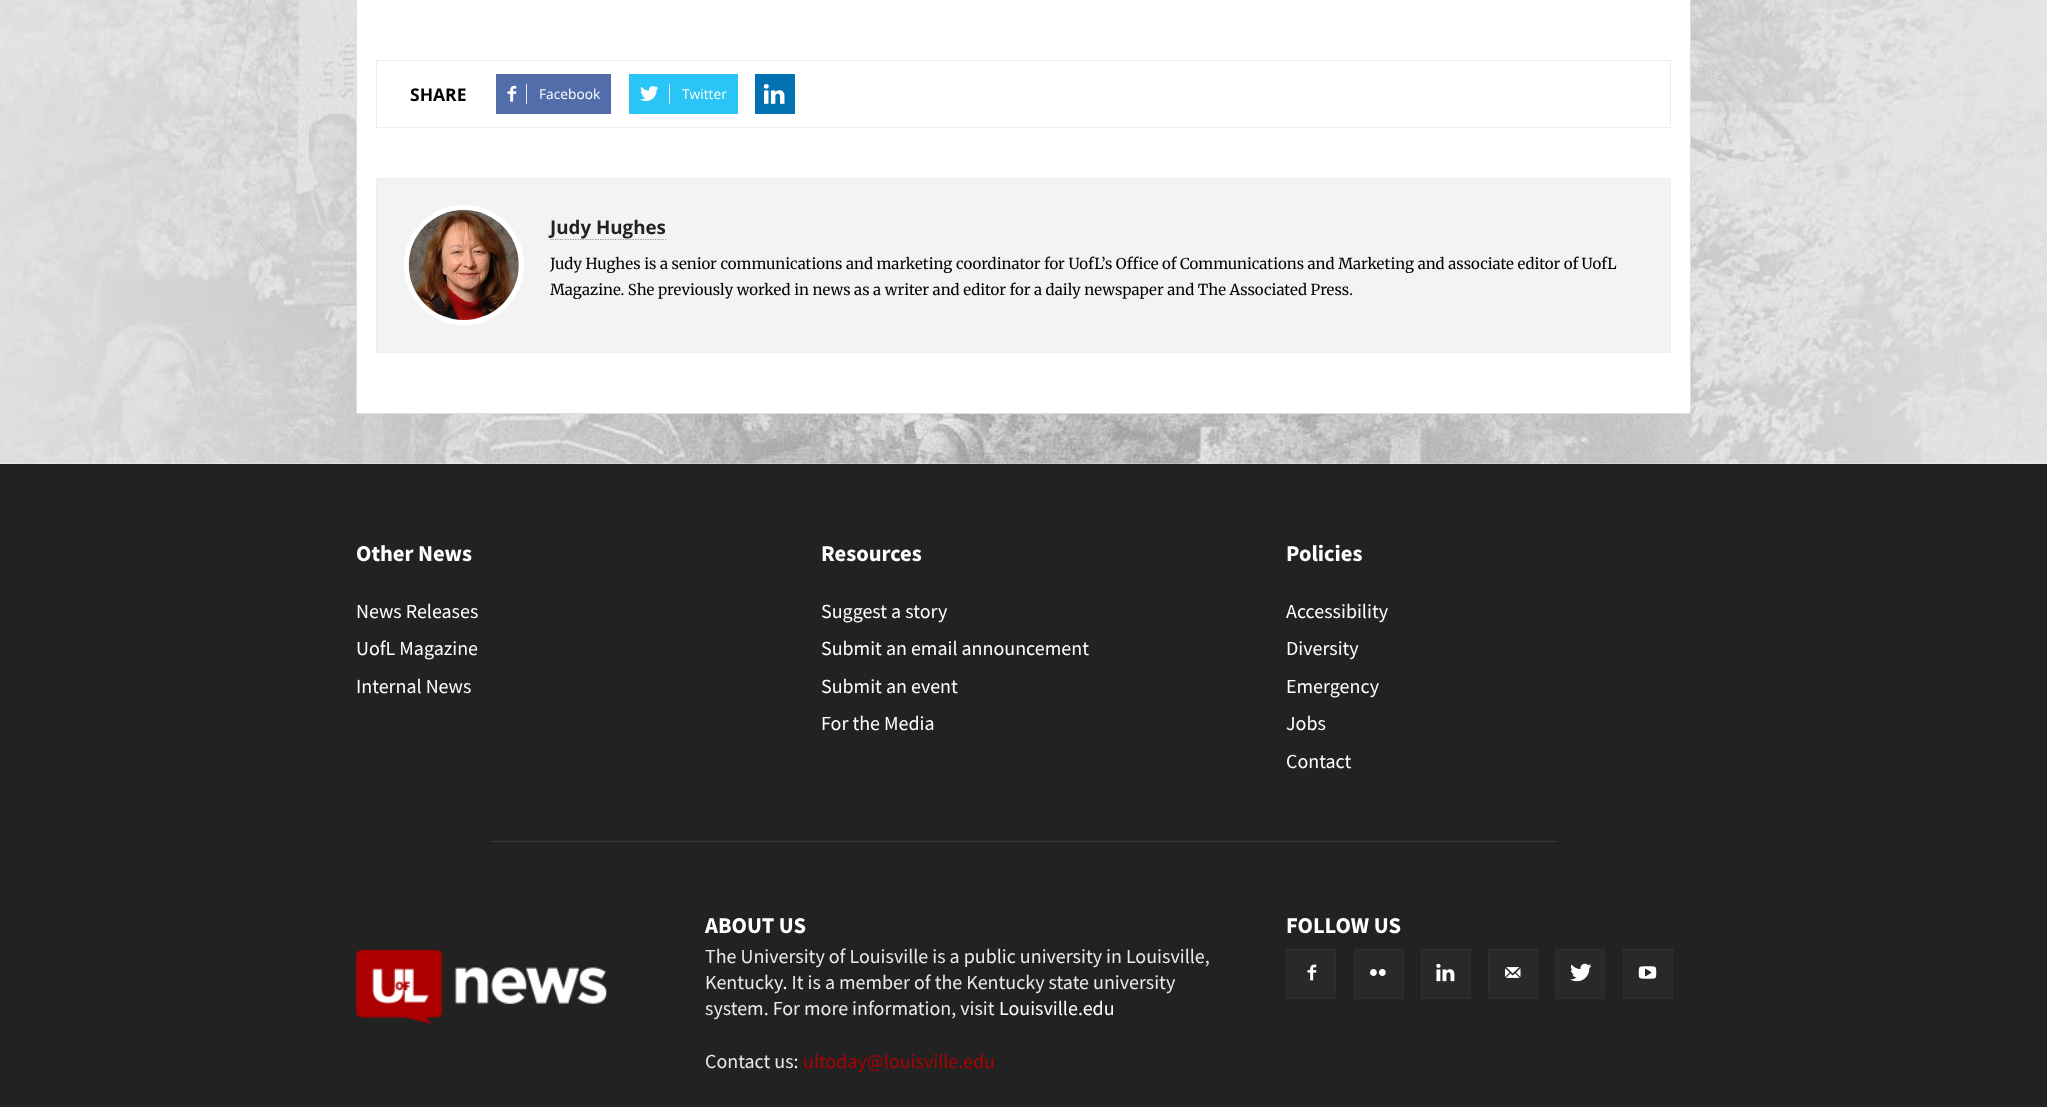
<?xml version="1.0" encoding="UTF-8"?>
<svg xmlns="http://www.w3.org/2000/svg" xmlns:xlink="http://www.w3.org/1999/xlink" width="2047" height="1107">
  <rect width="100%" height="100%" fill="#ffffff" />
  <image x="0" y="0" width="2047" height="464" xlink:href="image1.png" />
  <rect x="357" width="1333" height="413" fill="#ffffff" />
  <rect x="1690" width="1" height="414" fill="#dedede" />
  <rect x="356" y="413" width="1335" height="1" fill="#dedede" />
  <rect x="356" width="1" height="414" fill="#dedede" />
  <rect x="376.5" y="60.5" width="1294" height="67" fill="none" stroke="#ededed" />
  <rect x="496" y="74" width="115" height="40" fill="#516eab" />
  <image x="507" y="85" width="10" height="17" xlink:href="image2.png" />
  <rect x="526" y="84" width="1" height="20" fill="#eaeaea" />
  <rect x="629" y="74" width="109" height="40" fill="#29c5f6" />
  <image x="640" y="86" width="19" height="16" xlink:href="image3.png" />
  <rect x="669" y="84" width="1" height="20" fill="#eaeaea" />
  <rect x="755" y="74" width="40" height="40" fill="#0072b1" />
  <image x="763" y="84" width="22" height="20" xlink:href="image4.png" />
  <rect x="376.5" y="178.5" width="1294" height="174" fill="#f3f3f3" stroke="#ededed" />
  <circle cx="464" cy="265" r="57.5" fill="none" stroke="#ffffff" stroke-width="5" />
  <image x="408" y="210" width="111" height="110" xlink:href="image5.png" />
  <path d="M 550 239.5 h 116" fill="none" stroke="#999999" stroke-width="1.2" stroke-dasharray="1.25 1.25" />
  <rect y="464" width="2047" height="643" fill="#222222" />
  <rect x="490" y="841" width="1068" height="1" fill="#383838" />
  <rect x="1287" y="950" width="48" height="48" fill="#292929" />
  <image x="1307" y="964" width="10" height="17" xlink:href="image6.png" />
  <rect x="1286.5" y="949.5" width="49" height="49" fill="none" stroke="#2f2f2f" />
  <rect x="1355" y="950" width="48" height="48" fill="#292929" />
  <image x="1370" y="969" width="16" height="7" xlink:href="image7.png" />
  <rect x="1354.5" y="949.5" width="49" height="49" fill="none" stroke="#2f2f2f" />
  <rect x="1422" y="950" width="48" height="48" fill="#292929" />
  <image x="1436" y="963" width="19" height="19" xlink:href="image8.png" />
  <rect x="1421.5" y="949.5" width="49" height="49" fill="none" stroke="#2f2f2f" />
  <rect x="1489" y="950" width="48" height="48" fill="#292929" />
  <image x="1505" y="967" width="16" height="11" xlink:href="image9.png" />
  <rect x="1488.5" y="949.5" width="49" height="49" fill="none" stroke="#2f2f2f" />
  <rect x="1556" y="950" width="48" height="48" fill="#292929" />
  <image x="1570" y="963" width="22" height="19" xlink:href="image10.png" />
  <rect x="1555.5" y="949.5" width="49" height="49" fill="none" stroke="#2f2f2f" />
  <rect x="1624" y="950" width="48" height="48" fill="#292929" />
  <image x="1638" y="966" width="19" height="13" xlink:href="image11.png" />
  <rect x="1623.5" y="949.5" width="49" height="49" fill="none" stroke="#2f2f2f" />
  <image x="356" y="949" width="251" height="75" xlink:href="image12.png" />
  <text x="410" y="101" style="font-family: Open Sans; font-size: 17.5px; font-weight: bold; fill: #000000">SHARE</text>
  <text x="539" y="99" style="font-family: Open Sans; font-size: 13.75px; fill: #ffffff">Facebook</text>
  <text x="682" y="99" style="font-family: Open Sans; font-size: 13.75px; fill: #ffffff">Twitter</text>
  <text x="550" y="234" style="font-family: Open Sans; font-size: 18.75px; font-weight: bold; fill: #222222">Judy Hughes</text>
  <text x="550" y="269" style="font-family: Merriweather; font-size: 15px; fill: #000000">Judy Hughes is a senior communications and marketing coordinator for UofL’s Office of Communications and Marketing and associate editor of UofL</text>
  <text x="550" y="295" style="font-family: Merriweather; font-size: 15px; fill: #000000">Magazine. She previously worked in news as a writer and editor for a daily newspaper and The Associated Press.</text>
  <text x="356" y="561" style="font-family: Source Sans Pro; font-size: 22.5px; font-weight: bold; fill: #ffffff">Other News</text>
  <text x="356" y="618" style="font-family: Source Sans Pro; font-size: 20px; fill: #ffffff">News Releases</text>
  <text x="356" y="655" style="font-family: Source Sans Pro; font-size: 20px; fill: #ffffff">UofL Magazine</text>
  <text x="356" y="693" style="font-family: Source Sans Pro; font-size: 20px; fill: #ffffff">Internal News</text>
  <text x="821" y="561" style="font-family: Source Sans Pro; font-size: 22.5px; font-weight: bold; fill: #ffffff">Resources</text>
  <text x="821" y="618" style="font-family: Source Sans Pro; font-size: 20px; fill: #ffffff">Suggest a story</text>
  <text x="821" y="655" style="font-family: Source Sans Pro; font-size: 20px; fill: #ffffff">Submit an email announcement</text>
  <text x="821" y="693" style="font-family: Source Sans Pro; font-size: 20px; fill: #ffffff">Submit an event</text>
  <text x="821" y="730" style="font-family: Source Sans Pro; font-size: 20px; fill: #ffffff">For the Media</text>
  <text x="1286" y="561" style="font-family: Source Sans Pro; font-size: 22.5px; font-weight: bold; fill: #ffffff">Policies</text>
  <text x="1286" y="618" style="font-family: Source Sans Pro; font-size: 20px; fill: #ffffff">Accessibility</text>
  <text x="1286" y="655" style="font-family: Source Sans Pro; font-size: 20px; fill: #ffffff">Diversity</text>
  <text x="1286" y="693" style="font-family: Source Sans Pro; font-size: 20px; fill: #ffffff">Emergency</text>
  <text x="1286" y="730" style="font-family: Source Sans Pro; font-size: 20px; fill: #ffffff">Jobs</text>
  <text x="1286" y="768" style="font-family: Source Sans Pro; font-size: 20px; fill: #ffffff">Contact</text>
  <text x="705" y="933" style="font-family: Source Sans Pro; font-size: 22.5px; font-weight: bold; fill: #ffffff">ABOUT US</text>
  <text x="705" y="963" style="font-family: Source Sans Pro; font-size: 20px; fill: #eaeaea">The University of Louisville is a public university in Louisville,</text>
  <text x="705" y="989" style="font-family: Source Sans Pro; font-size: 20px; fill: #eaeaea">Kentucky. It is a member of the Kentucky state university</text>
  <text x="705" y="1015" style="font-family: Source Sans Pro; font-size: 20px; fill: #eaeaea">system. For more information, visit</text>
  <text x="999" y="1015" style="font-family: Source Sans Pro; font-size: 20px; fill: #ffffff">Louisville.edu</text>
  <text x="705" y="1068" style="font-family: Source Sans Pro; font-size: 20px; fill: #eaeaea">Contact us:</text>
  <text x="803" y="1068" style="font-family: Source Sans Pro; font-size: 20px; fill: #ad0000">ultoday@louisville.edu</text>
  <text x="1286" y="933" style="font-family: Source Sans Pro; font-size: 22.5px; font-weight: bold; fill: #ffffff">FOLLOW US</text>
</svg>
